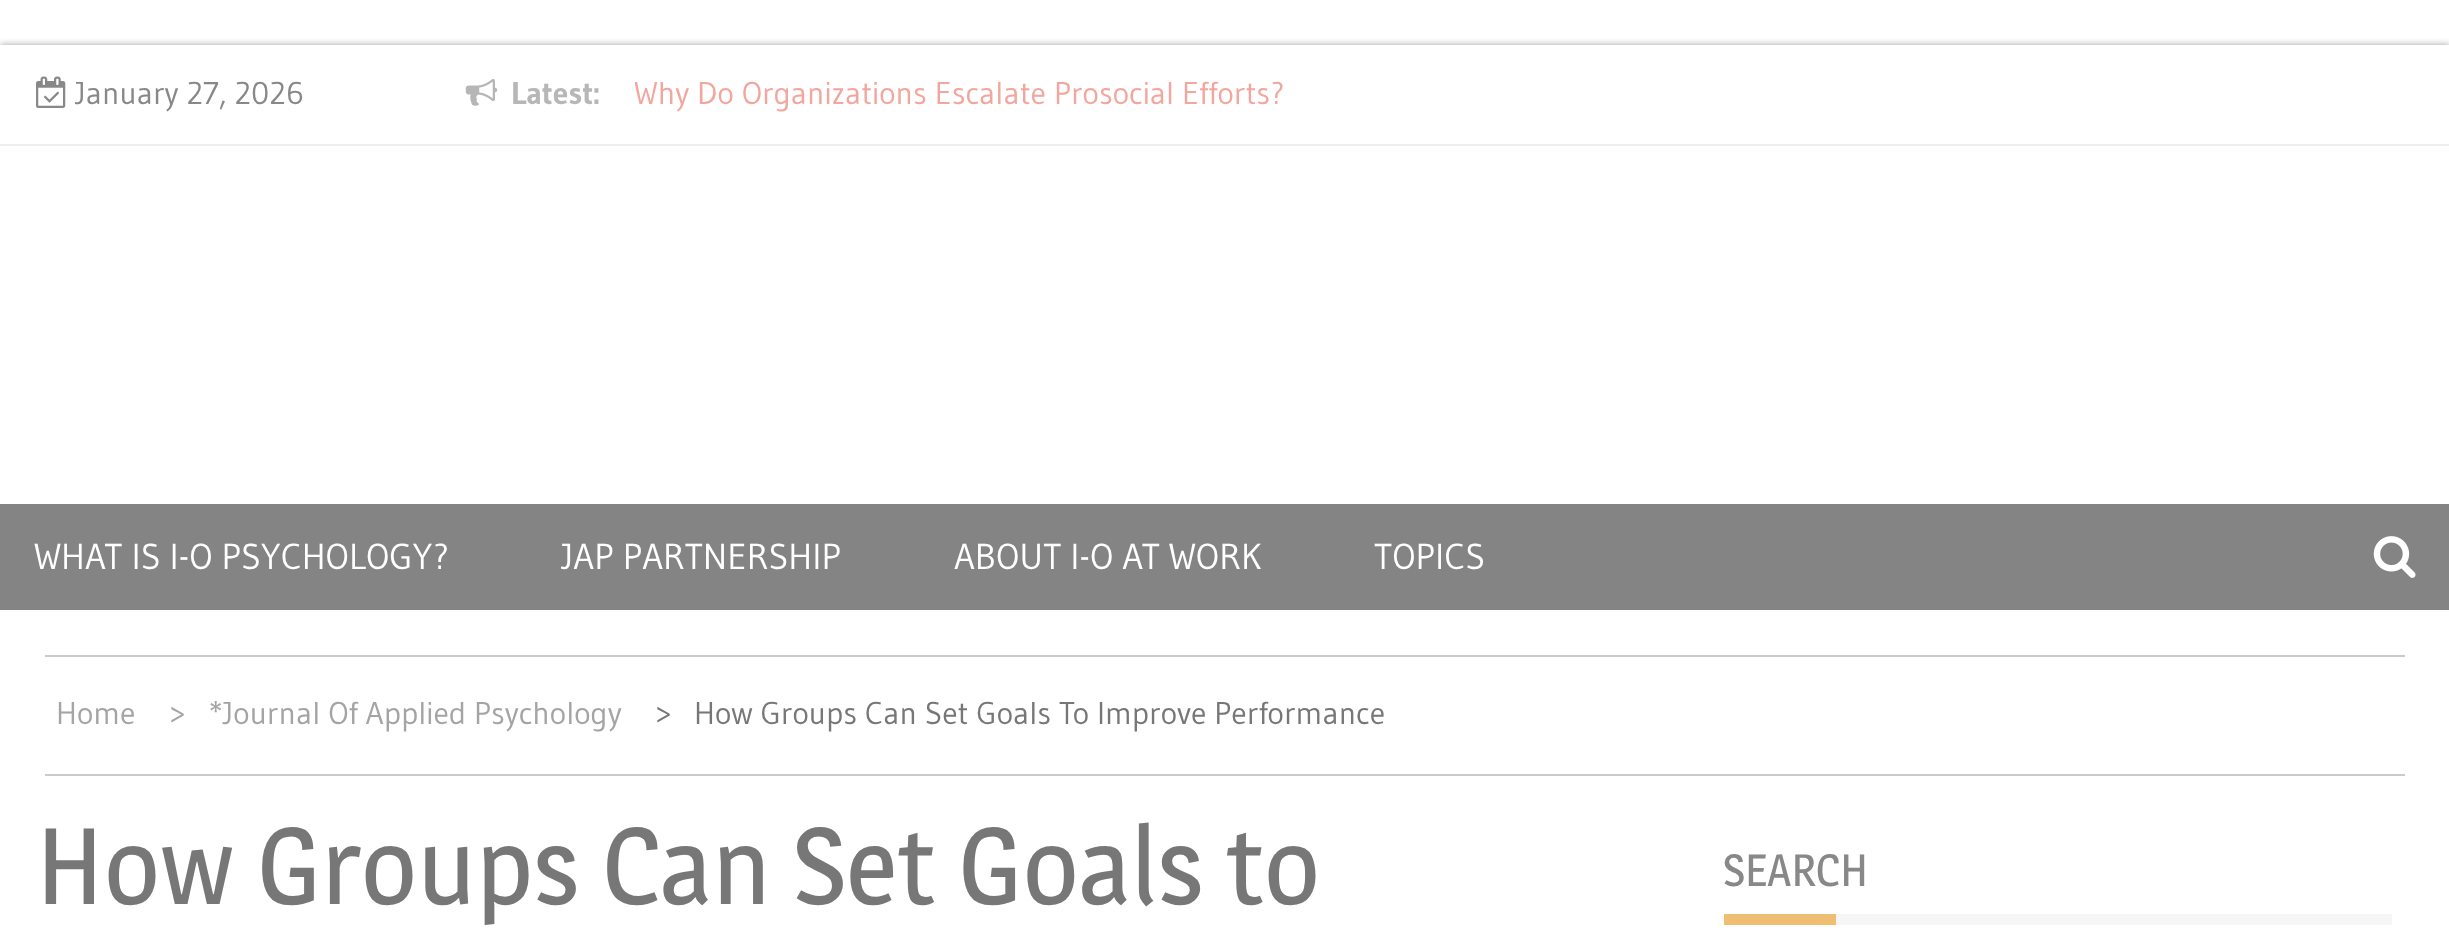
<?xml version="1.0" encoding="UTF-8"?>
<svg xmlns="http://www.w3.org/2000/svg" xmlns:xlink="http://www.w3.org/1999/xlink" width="2449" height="930">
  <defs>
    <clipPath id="clip1"><rect x="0" y="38" width="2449" height="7" /></clipPath>
    <clipPath id="clip2"><rect x="635" y="68" width="756" height="45" /></clipPath>
  </defs>
  <rect width="100%" height="100%" fill="#ffffff" />
  <g clip-path="url(#clip1)">
    <rect y="45" width="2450" height="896" fill="#9e9e9e" filter="blur(3.5px)" />
  </g>
  <rect y="144" width="2449" height="2" fill="#eeeeee" />
  <image x="36" y="76" width="30" height="32" xlink:href="image1.png" />
  <image x="465" y="78" width="33" height="28" xlink:href="image2.png" />
  <rect y="504" width="2449" height="106" fill="#848484" />
  <image x="2373" y="536" width="43" height="42" xlink:href="image3.png" />
  <rect x="45" y="655" width="2360" height="2" fill="#cacaca" />
  <rect x="45" y="774" width="2360" height="2" fill="#cacaca" />
  <rect x="1836" y="914" width="556" height="11" fill="#f6f6f6" />
  <rect x="1724" y="914" width="112" height="11" fill="#f0be73" />
  <text x="75" y="104" style="font-family: Gudea; font-size: 31.5px; fill: #888888">January 27, 2026</text>
  <text x="511" y="104" style="font-family: Gudea; font-size: 31.5px; font-weight: bold; fill: #b7b7b7">Latest:</text>
  <g clip-path="url(#clip2)">
    <text x="634" y="104" style="font-family: Gudea; font-size: 31.5px; fill: #f2a69d">Why Do Organizations Escalate Prosocial Efforts?</text>
  </g>
  <text x="34" y="569" style="font-family: Gudea; font-size: 36px; fill: #ffffff">WHAT IS I-O PSYCHOLOGY?</text>
  <text x="561" y="569" style="font-family: Gudea; font-size: 36px; fill: #ffffff">JAP PARTNERSHIP</text>
  <text x="954" y="569" style="font-family: Gudea; font-size: 36px; fill: #ffffff">ABOUT I-O AT WORK</text>
  <text x="1374" y="569" style="font-family: Gudea; font-size: 36px; fill: #ffffff">TOPICS</text>
  <text x="56" y="724" style="font-family: Gudea; font-size: 31.5px; fill: #a4a4a4">Home</text>
  <text x="169" y="724" style="font-family: Gudea; font-size: 31.5px; fill: #a4a4a4">&gt;</text>
  <text x="209" y="724" style="font-family: Gudea; font-size: 31.5px; fill: #a4a4a4">*Journal Of Applied Psychology</text>
  <text x="655" y="724" style="font-family: Gudea; font-size: 31.5px; fill: #777777">&gt;</text>
  <text x="694" y="724" style="font-family: Gudea; font-size: 31.5px; fill: #777777">How Groups Can Set Goals To Improve Performance</text>
  <text x="36" y="904" style="font-family: Magra; font-size: 108px; fill: #777777">How Groups Can Set Goals to</text>
  <text x="1723" y="886" style="font-family: Magra; font-size: 45px; fill: #888888">SEARCH</text>
</svg>
